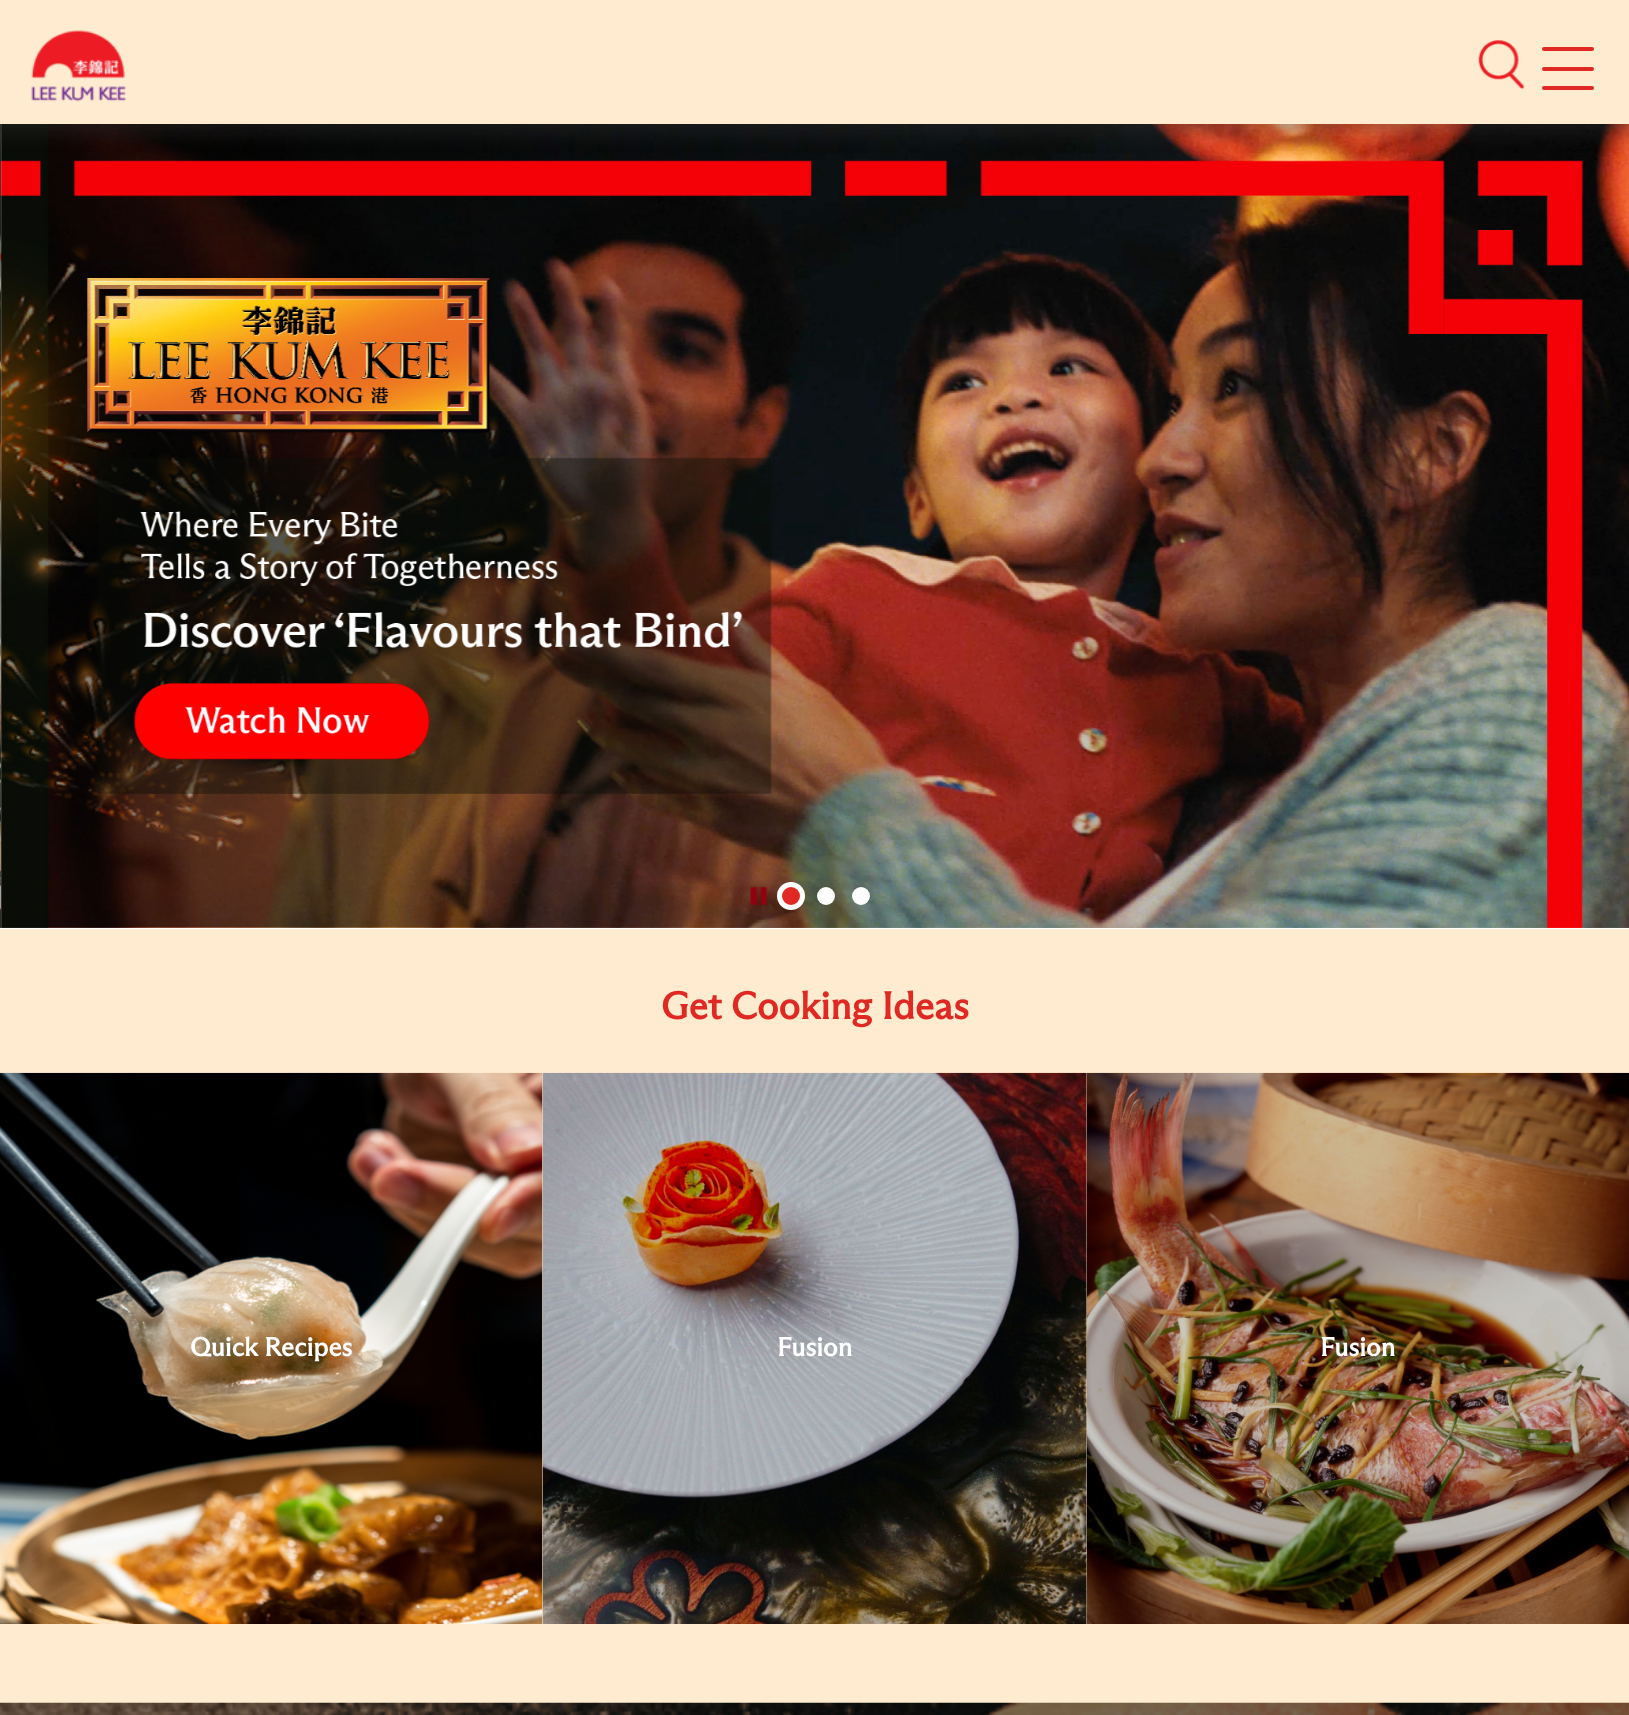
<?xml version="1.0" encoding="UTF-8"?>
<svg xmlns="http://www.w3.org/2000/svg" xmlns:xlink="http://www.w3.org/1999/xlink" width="1629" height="1715">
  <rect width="100%" height="100%" fill="#ffebcf" />
  <rect y="124" width="1629" height="805" fill="#ffffff" />
  <image x="0" y="124" width="1" height="804" xlink:href="image3.png" />
  <rect y="250" width="53" height="14" rx="7" fill="#e02923" />
  <image x="0" y="124" width="1629" height="804" xlink:href="image4.png" />
  <rect x="-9" y="-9" width="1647" height="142" fill="#333333" fill-opacity="0.4" filter="blur(9px)" />
  <rect width="1629" height="124" fill="#ffebcf" />
  <image x="31" y="30" width="96" height="72" xlink:href="image1.png" />
  <image x="1478" y="40" width="47" height="50" xlink:href="image2.png" />
  <rect x="1542" y="67" width="52" height="4" rx="2" fill="#e02923" />
  <rect x="1542" y="47" width="52" height="4" rx="2" fill="#e02923" />
  <rect x="1542" y="86" width="52" height="4" rx="2" fill="#e02923" />
  <image x="750" y="887" width="17" height="18" xlink:href="image5.png" />
  <circle cx="791" cy="896" r="11.5" fill="#e02923" stroke="#ffffff" stroke-width="5" />
  <circle cx="826" cy="896" r="9" fill="#ffffff" />
  <circle cx="861" cy="896" r="9" fill="#ffffff" />
  <image x="0" y="1072" width="543" height="552" xlink:href="image6.png" />
  <image x="542" y="1072" width="545" height="552" xlink:href="image7.png" />
  <image x="1086" y="1072" width="543" height="552" xlink:href="image8.png" />
  <image x="0" y="1702" width="1629" height="13" xlink:href="image9.png" />
  <text x="661" y="1019" style="font-family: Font; font-size: 38.5px; font-weight: bold; fill: #e02923">Get Cooking Ideas</text>
  <text x="190" y="1356" style="font-family: Font; font-size: 26.25px; font-weight: bold; fill: #ffffff">Quick Recipes</text>
  <text x="777" y="1356" style="font-family: Font; font-size: 26.25px; font-weight: bold; fill: #ffffff">Fusion</text>
  <text x="1320" y="1356" style="font-family: Font; font-size: 26.25px; font-weight: bold; fill: #ffffff">Fusion</text>
</svg>
